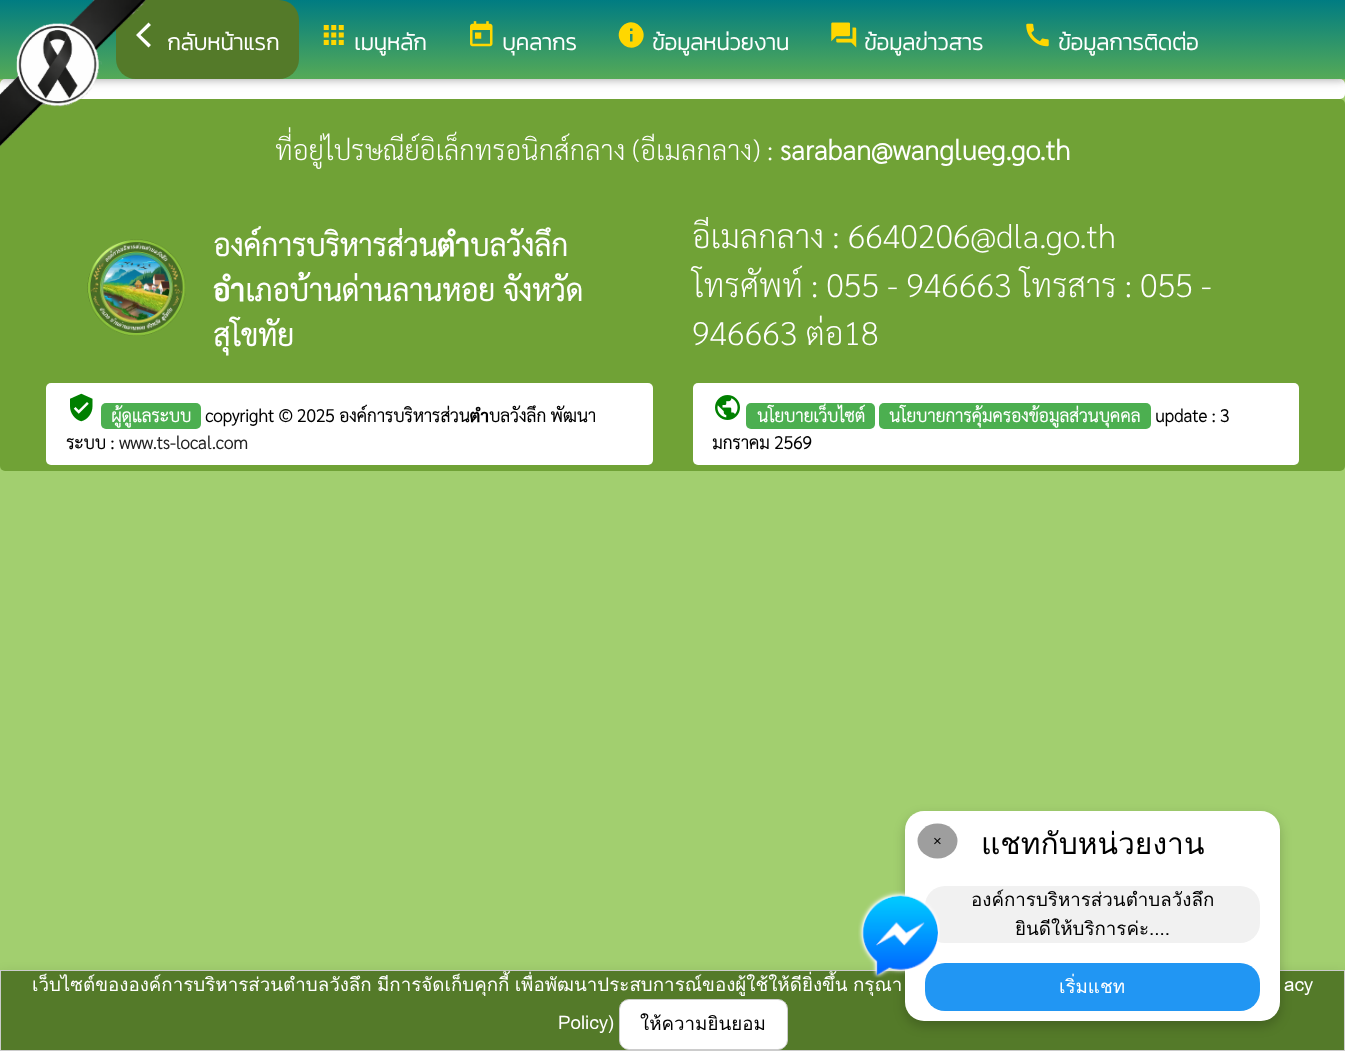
<?xml version="1.0" encoding="UTF-8"?>
<svg xmlns="http://www.w3.org/2000/svg" xmlns:xlink="http://www.w3.org/1999/xlink" width="1345" height="1051">
  <defs>
    <linearGradient id="g1" gradientUnits="userSpaceOnUse" x1="673" y1="0" x2="673" y2="79"><stop offset="0" stop-color="#007c82" /><stop offset="1" stop-color="#55aa57" /></linearGradient>
  </defs>
  <rect width="100%" height="100%" fill="#a2cf6f" />
  <rect y="79" width="1345" height="20" rx="5" fill="#ffffff" />
  <rect y="99" width="1345" height="372" rx="5" fill="#70a236" />
  <rect y="3" width="1345" height="78" fill="#000000" fill-opacity="0.12" filter="blur(6px)" />
  <rect y="3" width="1345" height="78" fill="#000000" fill-opacity="0.16" filter="blur(3px)" />
  <rect width="1345" height="79" fill="url(#g1)" />
  <rect x="116" width="183" height="79" rx="20" fill="#547a29" />
  <path d="M 151 25 l -10.5 10 l 10.5 10 l -2.5 2.5 l -12.5 -12.5 l 12.5 -12.5 z" fill="#ffffff" />
  <image x="0" y="0" width="146" height="147" xlink:href="image1.png" />
  <image x="323" y="25" width="21" height="20" xlink:href="image2.png" />
  <image x="470" y="21" width="23" height="26" xlink:href="image3.png" />
  <path d="M 632.5 31 v -2.5 h -2.5 v 2.5 z m 0 10.5 v -7.5 h -2.5 v 7.5 z m -10 -15.5 c 11.5 -11.5 29 6 17.5 18 c -11.5 11.5 -29 -6 -17.5 -18 z" fill="#ffd700" />
  <image x="831" y="22" width="26" height="26" xlink:href="image4.png" />
  <image x="1026" y="23" width="23" height="24" xlink:href="image5.png" />
  <image x="87" y="239" width="99" height="97" xlink:href="image6.png" />
  <rect x="46" y="383" width="607" height="82" rx="5" fill="#ffffff" />
  <image x="70" y="393" width="23" height="29" xlink:href="image7.png" />
  <rect x="101" y="403" width="100" height="26" rx="5" fill="#4caf50" />
  <rect x="693" y="383" width="606" height="82" rx="5" fill="#ffffff" />
  <image x="715" y="395" width="25" height="25" xlink:href="image8.png" />
  <rect x="746" y="403" width="129" height="26" rx="5" fill="#4caf50" />
  <rect x="879" y="403" width="272" height="26" rx="5" fill="#4caf50" />
  <rect y="973" width="1345" height="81" fill="#000000" fill-opacity="0.12" filter="blur(6px)" />
  <rect x="0.5" y="970.5" width="1344" height="80" fill="#547a29" stroke="#cccccc" />
  <rect x="905" y="816" width="375" height="210" rx="19" fill="#000000" fill-opacity="0.2" filter="blur(6px)" />
  <rect x="905" y="811" width="375" height="210" rx="19" fill="#ffffff" />
  <ellipse cx="937.5" cy="841" rx="20" ry="17.5" fill="#9e9e9e" />
  <rect x="925" y="886" width="335" height="57" rx="20" fill="#f1f1f1" />
  <rect x="925" y="963" width="335" height="48" rx="20" fill="#2196f3" />
  <rect x="619.5" y="999.5" width="168" height="50" rx="9.5" fill="#ffffff" stroke="#cccccc" />
  <text x="167" y="50" style="font-family: Kanit; font-size: 22.5px; font-weight: bold; fill: #ffffff">กลับหน้าแรก</text>
  <text x="354" y="50" style="font-family: Kanit; font-size: 22.5px; font-weight: bold; fill: #ffffff">เมนูหลัก</text>
  <text x="502" y="50" style="font-family: Kanit; font-size: 22.5px; font-weight: bold; fill: #ffffff">บุคลากร</text>
  <text x="652" y="50" style="font-family: Kanit; font-size: 22.5px; font-weight: bold; fill: #ffffff">ข้อมูลหน่วยงาน</text>
  <text x="864" y="50" style="font-family: Kanit; font-size: 22.5px; font-weight: bold; fill: #ffffff">ข้อมูลข่าวสาร</text>
  <text x="1058" y="50" style="font-family: Kanit; font-size: 22.5px; font-weight: bold; fill: #ffffff">ข้อมูลการติดต่อ</text>
  <text x="275" y="160" style="font-family: Sarabun; font-size: 27.5px; font-weight: 200; fill: #ffffff">ที่อยู่ไปรษณีย์อิเล็กทรอนิกส์กลาง (อีเมลกลาง) :</text>
  <text x="780" y="160" style="font-family: Sarabun; font-size: 27.5px; font-weight: bold; fill: #ffffff">saraban@wanglueg.go.th</text>
  <text x="213" y="256" style="font-family: Sarabun; font-size: 30px; font-weight: bold; fill: #ffffff">องค์การบริหารส่วนตำบลวังลึก</text>
  <text x="213" y="301" style="font-family: Sarabun; font-size: 30px; font-weight: bold; fill: #ffffff">อำเภอบ้านด่านลานหอย จังหวัด</text>
  <text x="213" y="346" style="font-family: Sarabun; font-size: 30px; font-weight: bold; fill: #ffffff">สุโขทัย</text>
  <text x="692" y="248" style="font-family: Sarabun; font-size: 32.5px; font-weight: 200; fill: #ffffff">อีเมลกลาง : 6640206@dla.go.th</text>
  <text x="692" y="297" style="font-family: Sarabun; font-size: 32.5px; font-weight: 200; fill: #ffffff">โทรศัพท์ : 055 - 946663 โทรสาร : 055 -</text>
  <text x="692" y="345" style="font-family: Sarabun; font-size: 32.5px; font-weight: 200; fill: #ffffff">946663 ต่อ18</text>
  <text x="111" y="422" style="font-family: Sarabun; font-size: 17.5px; font-weight: bold; fill: #ffffff">ผู้ดูแลระบบ</text>
  <text x="205" y="422" style="font-family: Sarabun; font-size: 17.5px; font-weight: bold; fill: #000000">copyright © 2025 องค์การบริหารส่วนตำบลวังลึก พัฒนา</text>
  <text x="66" y="449" style="font-family: Sarabun; font-size: 17.5px; font-weight: bold; fill: #000000">ระบบ :</text>
  <text x="119" y="449" style="font-family: Sarabun; font-size: 17.5px; font-weight: bold; fill: #222222">www.ts-local.com</text>
  <text x="757" y="422" style="font-family: Sarabun; font-size: 17.5px; font-weight: bold; fill: #ffffff">นโยบายเว็บไซต์</text>
  <text x="889" y="422" style="font-family: Sarabun; font-size: 17.5px; font-weight: bold; fill: #ffffff">นโยบายการคุ้มครองข้อมูลส่วนบุคคล</text>
  <text x="1155" y="422" style="font-family: Sarabun; font-size: 17.5px; font-weight: bold; fill: #000000">update : 3</text>
  <text x="712" y="449" style="font-family: Sarabun; font-size: 17.5px; font-weight: bold; fill: #000000">มกราคม 2569</text>
  <text x="933" y="846" style="font-family: Liberation Sans; font-size: 15px; fill: #000000">×</text>
  <text x="981" y="854" style="font-family: Loma; font-size: 30px; fill: #000000">แชทกับหน่วยงาน</text>
  <text x="971" y="906" style="font-family: Loma; font-size: 18.75px; fill: #000000">องค์การบริหารส่วนตำบลวังลึก</text>
  <text x="1015" y="935" style="font-family: Loma; font-size: 18.75px; fill: #000000">ยินดีให้บริการค่ะ....</text>
  <text x="1059" y="993" style="font-family: Loma; font-size: 18.75px; fill: #ffffff">เริ่มแชท</text>
  <text x="32" y="991" style="font-family: Loma; font-size: 18.75px; fill: #ffffff">เว็บไซต์ขององค์การบริหารส่วนตำบลวังลึก</text>
  <text x="377" y="991" word-spacing="-1" style="font-family: Loma; font-size: 18.75px; fill: #ffffff">มีการจัดเก็บคุกกี้ เพื่อพัฒนาประสบการณ์ของผู้ใช้ให้ดียิ่งขึ้น กรุณา</text>
  <image x="858" y="890" width="82" height="88" xlink:href="image9.png" />
  <text x="1284" y="991" word-spacing="-1" style="font-family: Loma; font-size: 18.75px; fill: #ffffff">acy</text>
  <text x="558" y="1029" style="font-family: Loma; font-size: 18.75px; fill: #ffffff">Policy)</text>
  <text x="640" y="1030" style="font-family: Loma; font-size: 18.75px; fill: #000000">ให้ความยินยอม</text>
</svg>
